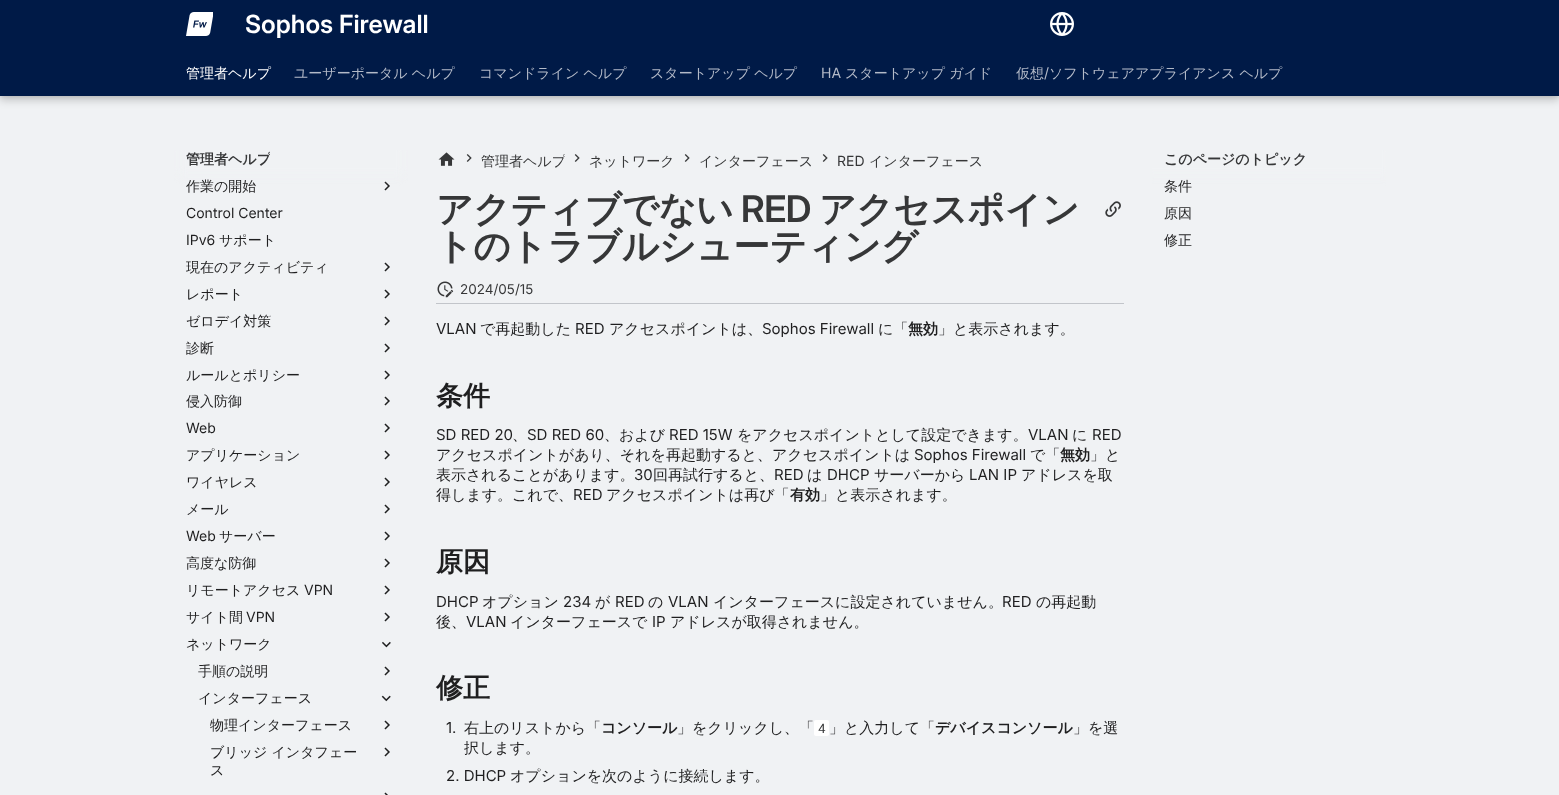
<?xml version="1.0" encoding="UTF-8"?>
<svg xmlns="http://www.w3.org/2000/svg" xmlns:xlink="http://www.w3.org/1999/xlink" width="1559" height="795">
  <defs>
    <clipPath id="clip1"><rect x="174" y="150" width="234" height="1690" /></clipPath>
    <clipPath id="clip2"><path d="M 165 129 h 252 v 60 h -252 z m 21 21 h 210 v 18 h -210 z" clip-rule="evenodd" /></clipPath>
    <clipPath id="clip3"><rect x="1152" y="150" width="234" height="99" /></clipPath>
    <clipPath id="clip4"><path d="M 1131 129 h 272 v 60 h -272 z m 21 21 h 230 v 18 h -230 z" clip-rule="evenodd" /></clipPath>
    <clipPath id="clip5"><rect x="186" y="150" width="84" height="18" /></clipPath>
    <clipPath id="clip6"><rect x="186" y="258" width="142" height="18" /></clipPath>
    <clipPath id="clip7"><rect x="186" y="339" width="28" height="18" /></clipPath>
    <clipPath id="clip8"><rect x="210" y="716" width="141" height="18" /></clipPath>
    <clipPath id="clip9"><rect x="481" y="150" width="84" height="21" /></clipPath>
  </defs>
  <rect width="100%" height="100%" fill="#f0f2f4" />
  <rect y="4" width="1559" height="96" fill="#000000" fill-opacity="0.2" filter="blur(4px)" />
  <rect width="1559" height="96" fill="#000000" fill-opacity="0.1" filter="blur(2px)" />
  <rect width="1559" height="96" fill="#001a47" />
  <image x="186" y="12" width="27" height="24" xlink:href="image1.png" />
  <image x="1050" y="12" width="24" height="24" xlink:href="image2.png" />
  <image x="384" y="181" width="6" height="10" xlink:href="image3.png" />
  <g clip-path="url(#clip1)">
    <g clip-path="url(#clip2)">
      <rect x="178" y="142" width="226" height="34" fill="#f0f2f4" filter="blur(4px)" />
    </g>
  </g>
  <image x="384" y="262" width="6" height="10" xlink:href="image3.png" />
  <image x="384" y="289" width="6" height="10" xlink:href="image3.png" />
  <image x="384" y="316" width="6" height="10" xlink:href="image3.png" />
  <image x="384" y="343" width="6" height="10" xlink:href="image3.png" />
  <image x="384" y="370" width="6" height="10" xlink:href="image3.png" />
  <image x="384" y="396" width="6" height="10" xlink:href="image3.png" />
  <image x="384" y="423" width="6" height="10" xlink:href="image3.png" />
  <image x="384" y="450" width="6" height="10" xlink:href="image3.png" />
  <image x="384" y="477" width="6" height="10" xlink:href="image3.png" />
  <image x="384" y="504" width="6" height="10" xlink:href="image3.png" />
  <image x="384" y="531" width="6" height="10" xlink:href="image3.png" />
  <image x="384" y="558" width="6" height="10" xlink:href="image3.png" />
  <image x="384" y="585" width="6" height="10" xlink:href="image3.png" />
  <image x="384" y="612" width="6" height="10" xlink:href="image3.png" />
  <image x="382" y="641" width="9" height="7" xlink:href="image4.png" />
  <image x="384" y="666" width="6" height="10" xlink:href="image3.png" />
  <image x="381" y="695" width="10" height="7" xlink:href="image5.png" />
  <image x="384" y="720" width="6" height="10" xlink:href="image3.png" />
  <image x="384" y="747" width="6" height="10" xlink:href="image3.png" />
  <image x="384" y="792" width="4" height="3" xlink:href="image6.png" />
  <image x="438" y="152" width="17" height="14" xlink:href="image7.png" />
  <image x="466" y="154" width="6" height="8" xlink:href="image8.png" />
  <image x="574" y="154" width="6" height="8" xlink:href="image8.png" />
  <image x="684" y="154" width="6" height="8" xlink:href="image8.png" />
  <image x="822" y="154" width="6" height="8" xlink:href="image8.png" />
  <image x="1105" y="201" width="16" height="16" xlink:href="image9.png" />
  <rect x="436" y="303" width="688" height="1" fill="#c2c5ca" />
  <image x="437" y="281" width="17" height="17" xlink:href="image10.png" />
  <rect x="814" y="720" width="15" height="16" rx="2" fill="#ffffff" />
  <g clip-path="url(#clip3)">
    <g clip-path="url(#clip4)">
      <rect x="1144" y="142" width="246" height="34" fill="#f0f2f4" filter="blur(4px)" />
    </g>
  </g>
  <text x="245" y="33" style="font-family: 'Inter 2'; font-size: 25px; font-weight: 600; fill: #ffffff">Sophos Firewall</text>
  <text x="186" y="78" style="font-family: WenQuanYi Zen Hei; font-size: 14px; font-weight: 500; fill: #ffffff">管理者ヘルプ</text>
  <text x="294" y="78" style="font-family: WenQuanYi Zen Hei; font-size: 14px; font-weight: 500; fill: #b3bac8">ユーザーポータル ヘルプ</text>
  <text x="479" y="78" style="font-family: WenQuanYi Zen Hei; font-size: 14px; font-weight: 500; fill: #b3bac8">コマンドライン ヘルプ</text>
  <text x="650" y="78" style="font-family: WenQuanYi Zen Hei; font-size: 14px; font-weight: 500; fill: #b3bac8">スタートアップ ヘルプ</text>
  <text x="821" y="78" style="font-family: Inter; font-size: 14px; fill: #b3bac8">HA</text>
  <text x="845" y="78" style="font-family: WenQuanYi Zen Hei; font-size: 14px; font-weight: 500; fill: #b3bac8">スタートアップ ガイド</text>
  <text x="1016" y="78" style="font-family: WenQuanYi Zen Hei; font-size: 14px; font-weight: 500; fill: #b3bac8">仮想</text>
  <text x="1044" y="78" style="font-family: Inter; font-size: 14px; fill: #b3bac8">/</text>
  <text x="1049" y="78" style="font-family: WenQuanYi Zen Hei; font-size: 14px; font-weight: 500; fill: #b3bac8">ソフトウェアアプライアンス ヘルプ</text>
  <g clip-path="url(#clip5)">
    <text x="186" y="164" style="font-family: WenQuanYi Zen Hei; font-size: 14px; font-weight: bold; fill: #363738">管理者ヘルプ</text>
  </g>
  <text x="186" y="191" style="font-family: WenQuanYi Zen Hei; font-size: 14px; font-weight: 500; fill: #1f1f20">作業の開始</text>
  <text x="186" y="218" style="font-family: Inter; font-size: 14px; fill: #1f1f20">Control Center</text>
  <text x="186" y="245" style="font-family: Inter; font-size: 14px; fill: #1f1f20">IPv6</text>
  <text x="219" y="245" style="font-family: WenQuanYi Zen Hei; font-size: 14px; font-weight: 500; fill: #1f1f20">サポート</text>
  <g clip-path="url(#clip6)">
    <text x="186" y="272" style="font-family: WenQuanYi Zen Hei; font-size: 14px; font-weight: 500; fill: #1f1f20">現在のアクティビティ</text>
  </g>
  <text x="186" y="299" style="font-family: WenQuanYi Zen Hei; font-size: 14px; font-weight: 500; fill: #1f1f20">レポート</text>
  <text x="186" y="326" style="font-family: WenQuanYi Zen Hei; font-size: 14px; font-weight: 500; fill: #1f1f20">ゼロデイ対策</text>
  <g clip-path="url(#clip7)">
    <text x="186" y="353" style="font-family: WenQuanYi Zen Hei; font-size: 14px; font-weight: 500; fill: #1f1f20">診断</text>
  </g>
  <text x="186" y="380" style="font-family: WenQuanYi Zen Hei; font-size: 14px; font-weight: 500; fill: #1f1f20">ルールとポリシー</text>
  <text x="186" y="406" style="font-family: WenQuanYi Zen Hei; font-size: 14px; font-weight: 500; fill: #1f1f20">侵入防御</text>
  <text x="186" y="433" style="font-family: Inter; font-size: 14px; fill: #1f1f20">Web</text>
  <text x="186" y="460" style="font-family: WenQuanYi Zen Hei; font-size: 14px; font-weight: 500; fill: #1f1f20">アプリケーション</text>
  <text x="186" y="487" style="font-family: WenQuanYi Zen Hei; font-size: 14px; font-weight: 500; fill: #1f1f20">ワイヤレス</text>
  <text x="186" y="514" style="font-family: WenQuanYi Zen Hei; font-size: 14px; font-weight: 500; fill: #1f1f20">メール</text>
  <text x="186" y="541" style="font-family: Inter; font-size: 14px; fill: #1f1f20">Web</text>
  <text x="219" y="541" style="font-family: WenQuanYi Zen Hei; font-size: 14px; font-weight: 500; fill: #1f1f20">サーバー</text>
  <text x="186" y="568" style="font-family: WenQuanYi Zen Hei; font-size: 14px; font-weight: 500; fill: #1f1f20">高度な防御</text>
  <text x="186" y="595" style="font-family: WenQuanYi Zen Hei; font-size: 14px; font-weight: 500; fill: #1f1f20">リモートアクセス</text>
  <text x="304" y="595" style="font-family: Inter; font-size: 14px; fill: #1f1f20">VPN</text>
  <text x="186" y="622" style="font-family: WenQuanYi Zen Hei; font-size: 14px; font-weight: 500; fill: #1f1f20">サイト間</text>
  <text x="246" y="622" style="font-family: Inter; font-size: 14px; fill: #1f1f20">VPN</text>
  <text x="186" y="649" style="font-family: WenQuanYi Zen Hei; font-size: 14px; font-weight: 500; fill: #1f1f20">ネットワーク</text>
  <text x="198" y="676" style="font-family: WenQuanYi Zen Hei; font-size: 14px; font-weight: 500; fill: #1f1f20">手順の説明</text>
  <text x="198" y="703" style="font-family: WenQuanYi Zen Hei; font-size: 14px; font-weight: 500; fill: #1f1f20">インターフェース</text>
  <g clip-path="url(#clip8)">
    <text x="210" y="730" style="font-family: WenQuanYi Zen Hei; font-size: 14px; font-weight: 500; fill: #1f1f20">物理インターフェース</text>
  </g>
  <text x="210" y="757" style="font-family: WenQuanYi Zen Hei; font-size: 14px; font-weight: 500; fill: #1f1f20">ブリッジ インタフェー</text>
  <text x="210" y="775" style="font-family: WenQuanYi Zen Hei; font-size: 14px; font-weight: 500; fill: #1f1f20">ス</text>
  <g clip-path="url(#clip9)">
    <text x="481" y="166" style="font-family: WenQuanYi Zen Hei; font-size: 14px; font-weight: 500; fill: #363738">管理者ヘルプ</text>
  </g>
  <text x="589" y="166" style="font-family: WenQuanYi Zen Hei; font-size: 14px; font-weight: 500; fill: #363738">ネットワーク</text>
  <text x="699" y="166" style="font-family: WenQuanYi Zen Hei; font-size: 14px; font-weight: 500; fill: #363738">インターフェース</text>
  <text x="837" y="166" style="font-family: Inter; font-size: 14px; fill: #363738">RED</text>
  <text x="869" y="166" style="font-family: WenQuanYi Zen Hei; font-size: 14px; font-weight: 500; fill: #363738">インターフェース</text>
  <text x="436" y="222" style="font-family: WenQuanYi Zen Hei; font-size: 36.7px; font-weight: bold; letter-spacing: -0.4px; fill: #363738">アクティブでない</text>
  <text x="741" y="222" style="font-family: Inter; font-size: 36.7px; font-weight: 600; letter-spacing: -0.4px; fill: #363738">RED</text>
  <text x="819" y="222" style="font-family: WenQuanYi Zen Hei; font-size: 36.7px; font-weight: bold; letter-spacing: -0.4px; fill: #363738">アクセスポイン</text>
  <text x="436" y="259" style="font-family: WenQuanYi Zen Hei; font-size: 36.7px; font-weight: bold; letter-spacing: -0.4px; fill: #363738">トのトラブルシューティング</text>
  <text x="460" y="294" style="font-family: Inter; font-size: 13.5px; fill: #363738">2024/05/15</text>
  <text x="436" y="334" style="font-family: Inter; font-size: 15px; fill: #1f1f20">VLAN</text>
  <text x="480" y="334" style="font-family: WenQuanYi Zen Hei; font-size: 15px; font-weight: 500; fill: #1f1f20">で再起動した</text>
  <text x="575" y="334" style="font-family: Inter; font-size: 15px; fill: #1f1f20">RED</text>
  <text x="609" y="334" style="font-family: WenQuanYi Zen Hei; font-size: 15px; font-weight: 500; fill: #1f1f20">アクセスポイントは、</text>
  <text x="762" y="334" style="font-family: Inter; font-size: 15px; fill: #1f1f20">Sophos Firewall</text>
  <text x="878" y="334" style="font-family: WenQuanYi Zen Hei; font-size: 15px; font-weight: 500; fill: #1f1f20">に「</text>
  <text x="908" y="334" style="font-family: WenQuanYi Zen Hei; font-size: 15px; font-weight: bold; fill: #1f1f20">無効</text>
  <text x="938" y="334" style="font-family: WenQuanYi Zen Hei; font-size: 15px; font-weight: 500; fill: #1f1f20">」と表示されます。</text>
  <text x="436" y="405" style="font-family: WenQuanYi Zen Hei; font-size: 27px; font-weight: bold; fill: #1f1f20">条件</text>
  <text x="436" y="440" style="font-family: Inter; font-size: 15px; fill: #1f1f20">SD RED 20</text>
  <text x="512" y="440" style="font-family: WenQuanYi Zen Hei; font-size: 15px; font-weight: 500; fill: #1f1f20">、</text>
  <text x="527" y="440" style="font-family: Inter; font-size: 15px; fill: #1f1f20">SD RED 60</text>
  <text x="604" y="440" style="font-family: WenQuanYi Zen Hei; font-size: 15px; font-weight: 500; fill: #1f1f20">、および</text>
  <text x="669" y="440" style="font-family: Inter; font-size: 15px; fill: #1f1f20">RED 15W</text>
  <text x="737" y="440" style="font-family: WenQuanYi Zen Hei; font-size: 15px; font-weight: 500; fill: #1f1f20">をアクセスポイントとして設定できます。</text>
  <text x="1028" y="440" style="font-family: Inter; font-size: 15px; fill: #1f1f20">VLAN</text>
  <text x="1072" y="440" style="font-family: WenQuanYi Zen Hei; font-size: 15px; font-weight: 500; fill: #1f1f20">に</text>
  <text x="1092" y="440" style="font-family: Inter; font-size: 15px; fill: #1f1f20">RED</text>
  <text x="436" y="460" style="font-family: WenQuanYi Zen Hei; font-size: 15px; font-weight: 500; fill: #1f1f20">アクセスポイントがあり、それを再起動すると、アクセスポイントは</text>
  <text x="914" y="460" style="font-family: Inter; font-size: 15px; fill: #1f1f20">Sophos Firewall</text>
  <text x="1030" y="460" style="font-family: WenQuanYi Zen Hei; font-size: 15px; font-weight: 500; fill: #1f1f20">で「</text>
  <text x="1060" y="460" style="font-family: WenQuanYi Zen Hei; font-size: 15px; font-weight: bold; fill: #1f1f20">無効</text>
  <text x="1090" y="460" style="font-family: WenQuanYi Zen Hei; font-size: 15px; font-weight: 500; fill: #1f1f20">」と</text>
  <text x="436" y="480" style="font-family: WenQuanYi Zen Hei; font-size: 15px; font-weight: 500; fill: #1f1f20">表示されることがあります。</text>
  <text x="634" y="480" style="font-family: Inter; font-size: 15px; fill: #1f1f20">30</text>
  <text x="653" y="480" style="font-family: WenQuanYi Zen Hei; font-size: 15px; font-weight: 500; fill: #1f1f20">回再試行すると、</text>
  <text x="774" y="480" style="font-family: Inter; font-size: 15px; fill: #1f1f20">RED</text>
  <text x="807" y="480" style="font-family: WenQuanYi Zen Hei; font-size: 15px; font-weight: 500; fill: #1f1f20">は</text>
  <text x="827" y="480" style="font-family: Inter; font-size: 15px; fill: #1f1f20">DHCP</text>
  <text x="874" y="480" style="font-family: WenQuanYi Zen Hei; font-size: 15px; font-weight: 500; fill: #1f1f20">サーバーから</text>
  <text x="969" y="480" style="font-family: Inter; font-size: 15px; fill: #1f1f20">LAN IP</text>
  <text x="1021" y="480" style="font-family: WenQuanYi Zen Hei; font-size: 15px; font-weight: 500; fill: #1f1f20">アドレスを取</text>
  <text x="436" y="500" style="font-family: WenQuanYi Zen Hei; font-size: 15px; font-weight: 500; fill: #1f1f20">得します。これで、</text>
  <text x="573" y="500" style="font-family: Inter; font-size: 15px; fill: #1f1f20">RED</text>
  <text x="606" y="500" style="font-family: WenQuanYi Zen Hei; font-size: 15px; font-weight: 500; fill: #1f1f20">アクセスポイントは再び「</text>
  <text x="790" y="500" style="font-family: WenQuanYi Zen Hei; font-size: 15px; font-weight: bold; fill: #1f1f20">有効</text>
  <text x="820" y="500" style="font-family: WenQuanYi Zen Hei; font-size: 15px; font-weight: 500; fill: #1f1f20">」と表示されます。</text>
  <text x="436" y="571" style="font-family: WenQuanYi Zen Hei; font-size: 27px; font-weight: bold; fill: #1f1f20">原因</text>
  <text x="436" y="607" style="font-family: Inter; font-size: 15px; fill: #1f1f20">DHCP</text>
  <text x="482" y="607" style="font-family: WenQuanYi Zen Hei; font-size: 15px; font-weight: 500; fill: #1f1f20">オプション</text>
  <text x="563" y="607" style="font-family: Inter; font-size: 15px; fill: #1f1f20">234</text>
  <text x="595" y="607" style="font-family: WenQuanYi Zen Hei; font-size: 15px; font-weight: 500; fill: #1f1f20">が</text>
  <text x="615" y="607" style="font-family: Inter; font-size: 15px; fill: #1f1f20">RED</text>
  <text x="648" y="607" style="font-family: WenQuanYi Zen Hei; font-size: 15px; font-weight: 500; fill: #1f1f20">の</text>
  <text x="668" y="607" style="font-family: Inter; font-size: 15px; fill: #1f1f20">VLAN</text>
  <text x="713" y="607" style="font-family: WenQuanYi Zen Hei; font-size: 15px; font-weight: 500; fill: #1f1f20">インターフェースに設定されていません。</text>
  <text x="1002" y="607" style="font-family: Inter; font-size: 15px; fill: #1f1f20">RED</text>
  <text x="1036" y="607" style="font-family: WenQuanYi Zen Hei; font-size: 15px; font-weight: 500; fill: #1f1f20">の再起動</text>
  <text x="436" y="627" style="font-family: WenQuanYi Zen Hei; font-size: 15px; font-weight: 500; fill: #1f1f20">後、</text>
  <text x="466" y="627" style="font-family: Inter; font-size: 15px; fill: #1f1f20">VLAN</text>
  <text x="510" y="627" style="font-family: WenQuanYi Zen Hei; font-size: 15px; font-weight: 500; fill: #1f1f20">インターフェースで</text>
  <text x="652" y="627" style="font-family: Inter; font-size: 15px; fill: #1f1f20">IP</text>
  <text x="670" y="627" style="font-family: WenQuanYi Zen Hei; font-size: 15px; font-weight: 500; fill: #1f1f20">アドレスが取得されません。</text>
  <text x="436" y="697" style="font-family: WenQuanYi Zen Hei; font-size: 27px; font-weight: bold; fill: #1f1f20">修正</text>
  <text x="446" y="733" style="font-family: Inter; font-size: 15px; fill: #1f1f20">1.</text>
  <text x="464" y="733" style="font-family: WenQuanYi Zen Hei; font-size: 15px; font-weight: 500; fill: #1f1f20">右上のリストから「</text>
  <text x="601" y="733" style="font-family: WenQuanYi Zen Hei; font-size: 15px; font-weight: bold; fill: #1f1f20">コンソール</text>
  <text x="677" y="733" style="font-family: WenQuanYi Zen Hei; font-size: 15px; font-weight: 500; fill: #1f1f20">」をクリックし、「</text>
  <text x="818" y="733" style="font-family: Roboto Mono; font-size: 13px; fill: #363738">4</text>
  <text x="829" y="733" style="font-family: WenQuanYi Zen Hei; font-size: 15px; font-weight: 500; fill: #1f1f20">」と入力して「</text>
  <text x="935" y="733" style="font-family: WenQuanYi Zen Hei; font-size: 15px; font-weight: bold; fill: #1f1f20">デバイスコンソール</text>
  <text x="1073" y="733" style="font-family: WenQuanYi Zen Hei; font-size: 15px; font-weight: 500; fill: #1f1f20">」を選</text>
  <text x="464" y="753" style="font-family: WenQuanYi Zen Hei; font-size: 15px; font-weight: 500; fill: #1f1f20">択します。</text>
  <text x="446" y="781" style="font-family: Inter; font-size: 15px; fill: #1f1f20">2. DHCP</text>
  <text x="510" y="781" style="font-family: WenQuanYi Zen Hei; font-size: 15px; font-weight: 500; fill: #1f1f20">オプションを次のように接続します。</text>
  <text x="1164" y="164" style="font-family: WenQuanYi Zen Hei; font-size: 14px; font-weight: bold; fill: #363738">このページのトピック</text>
  <text x="1164" y="191" style="font-family: WenQuanYi Zen Hei; font-size: 14px; font-weight: 500; fill: #1f1f20">条件</text>
  <text x="1164" y="218" style="font-family: WenQuanYi Zen Hei; font-size: 14px; font-weight: 500; fill: #1f1f20">原因</text>
  <text x="1164" y="245" style="font-family: WenQuanYi Zen Hei; font-size: 14px; font-weight: 500; fill: #1f1f20">修正</text>
</svg>
